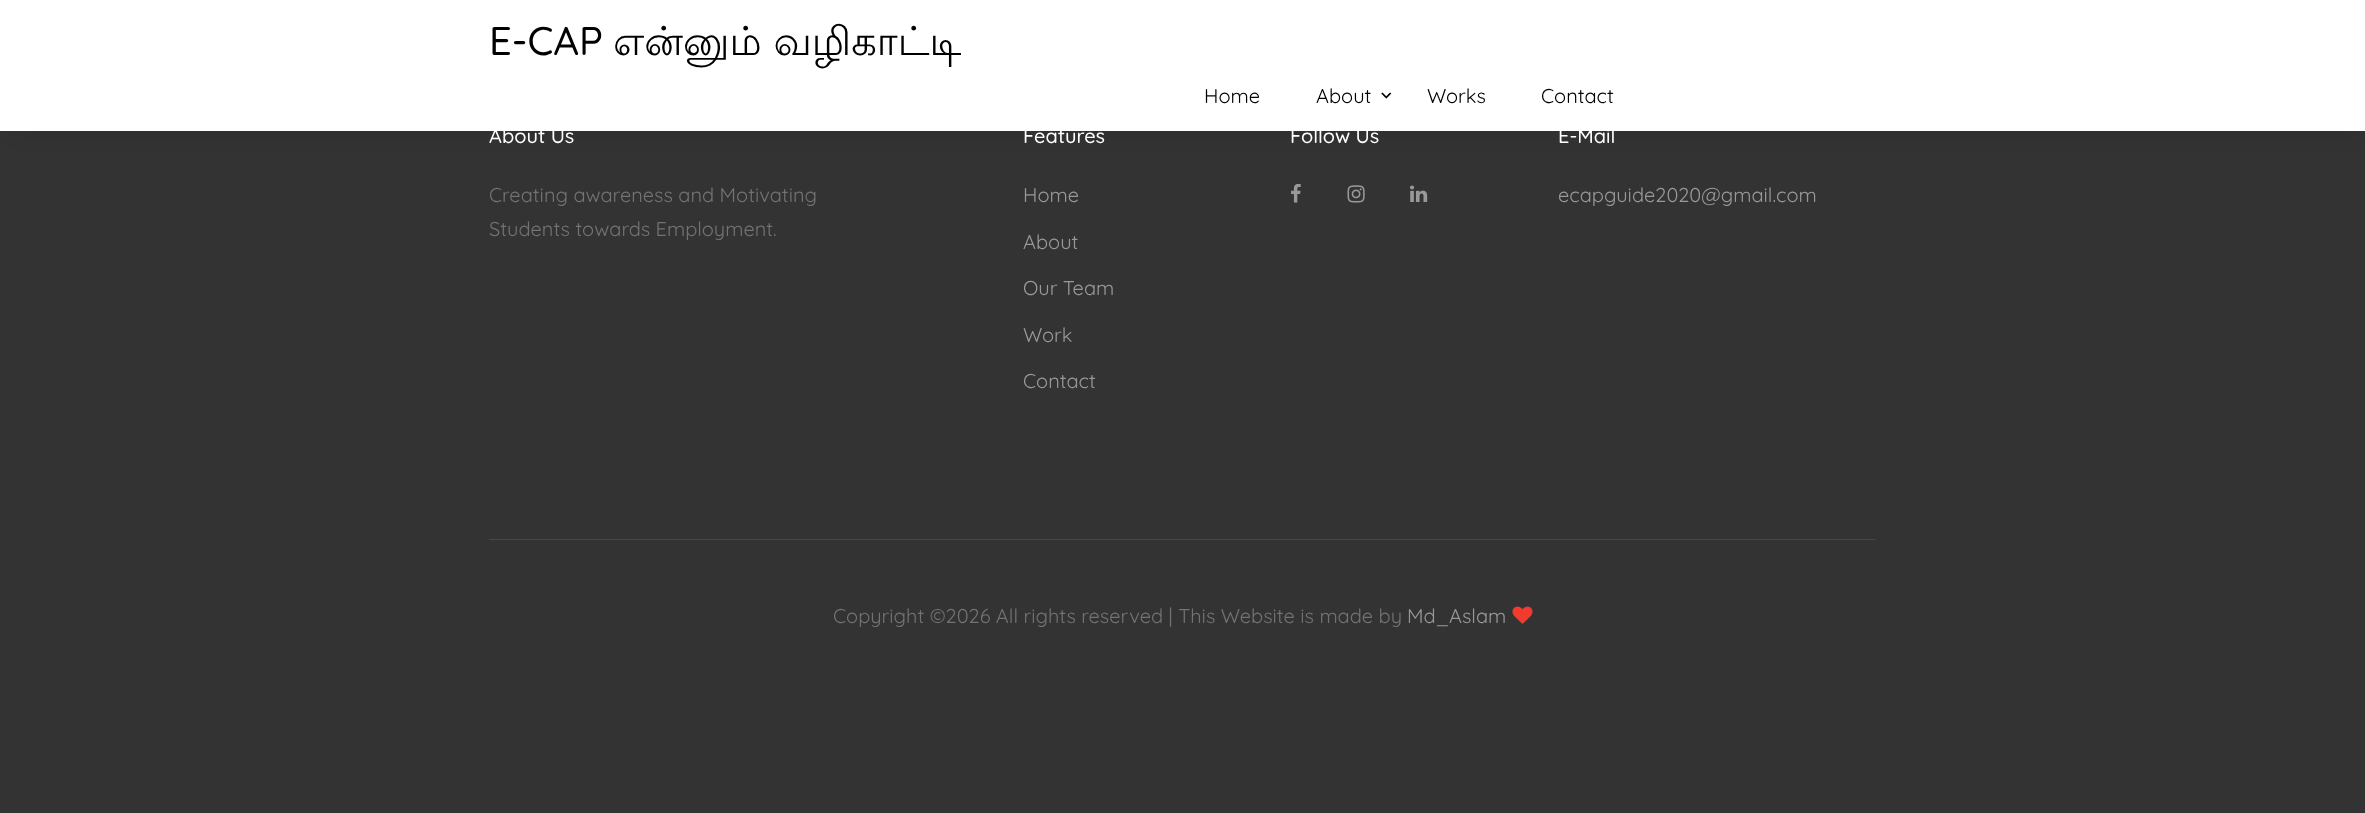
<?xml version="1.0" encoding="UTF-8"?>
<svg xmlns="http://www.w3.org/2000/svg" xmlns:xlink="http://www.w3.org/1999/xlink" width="2365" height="813">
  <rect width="100%" height="100%" fill="#333333" />
  <rect x="11" y="6" width="2353" height="119" fill="#000000" fill-opacity="0.2" filter="blur(12.5px)" />
  <rect width="2365" height="131" fill="#ffffff" />
  <image x="1381" y="92" width="11" height="7" xlink:href="image1.png" />
  <image x="1291" y="183" width="10" height="20" xlink:href="image2.png" />
  <image x="1347" y="185" width="18" height="18" xlink:href="image3.png" />
  <image x="1410" y="185" width="18" height="17" xlink:href="image4.png" />
  <rect x="489" y="539" width="1387" height="1" fill="#474747" />
  <image x="1512" y="606" width="21" height="18" xlink:href="image5.png" />
  <text x="489" y="55" style="font-family: Quicksand; font-size: 40px; font-weight: 500; fill: #000000">E-CAP</text>
  <text x="613" y="55" style="font-family: Lohit Tamil; font-size: 40px; fill: #000000">என்னும் வழிகாட்டி</text>
  <text x="1204" y="103" style="font-family: Quicksand; font-size: 20px; fill: #000000">Home</text>
  <text x="1316" y="103" style="font-family: Quicksand; font-size: 20px; fill: #000000">About</text>
  <text x="1427" y="103" style="font-family: Quicksand; font-size: 20px; fill: #000000">Works</text>
  <text x="1541" y="103" style="font-family: Quicksand; font-size: 20px; fill: #000000">Contact</text>
  <text x="489" y="143" style="font-family: Quicksand; font-size: 20px; font-weight: 500; fill: #ffffff">About Us</text>
  <text x="489" y="202" style="font-family: Quicksand; font-size: 20px; fill: #737373">Creating awareness and Motivating</text>
  <text x="489" y="236" style="font-family: Quicksand; font-size: 20px; fill: #737373">Students towards Employment.</text>
  <text x="1023" y="143" style="font-family: Quicksand; font-size: 20px; font-weight: 500; fill: #ffffff">Features</text>
  <text x="1023" y="202" style="font-family: Quicksand; font-size: 20px; fill: #999999">Home</text>
  <text x="1023" y="249" style="font-family: Quicksand; font-size: 20px; fill: #999999">About</text>
  <text x="1023" y="295" style="font-family: Quicksand; font-size: 20px; fill: #999999">Our Team</text>
  <text x="1023" y="342" style="font-family: Quicksand; font-size: 20px; fill: #999999">Work</text>
  <text x="1023" y="388" style="font-family: Quicksand; font-size: 20px; fill: #999999">Contact</text>
  <text x="1290" y="143" style="font-family: Quicksand; font-size: 20px; font-weight: 500; fill: #ffffff">Follow Us</text>
  <text x="1558" y="143" style="font-family: Quicksand; font-size: 20px; font-weight: 500; fill: #ffffff">E-Mail</text>
  <text x="1558" y="202" style="font-family: Quicksand; font-size: 20px; fill: #999999">ecapguide2020@gmail.com</text>
  <text x="833" y="623" style="font-family: Quicksand; font-size: 20px; fill: #737373">Copyright ©2026 All rights reserved | This Website is made by</text>
  <text x="1407" y="623" style="font-family: Quicksand; font-size: 20px; fill: #999999">Md_Aslam</text>
</svg>
